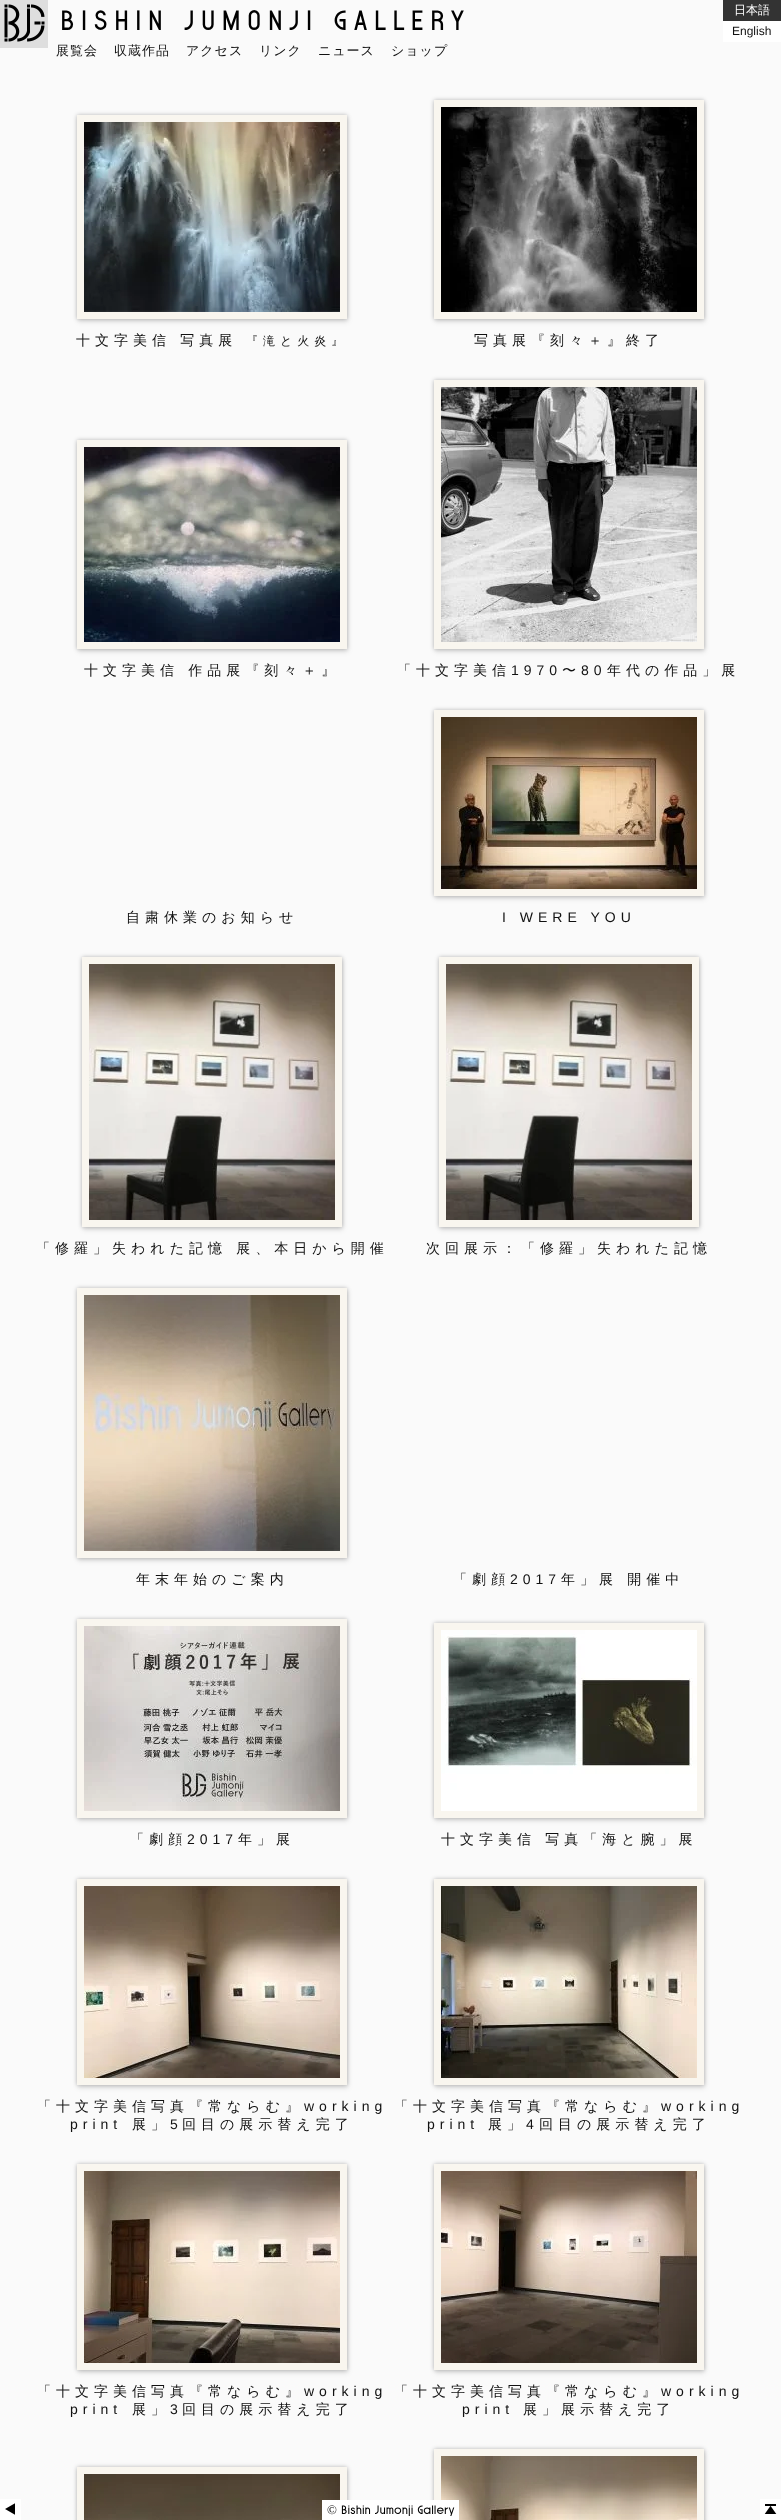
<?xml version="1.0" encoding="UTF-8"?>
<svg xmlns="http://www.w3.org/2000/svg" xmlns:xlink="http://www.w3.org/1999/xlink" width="781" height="2520">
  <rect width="100%" height="100%" fill="#fafafa" />
  <rect width="48" height="48" fill="#dedede" />
  <image x="4" y="4" width="41" height="38" xlink:href="image1.png" />
  <rect x="723" y="21" width="58" height="21" fill="#ffffff" />
  <rect x="723" width="58" height="21" fill="#333333" />
  <rect x="77" y="115" width="270" height="204" fill="#000000" fill-opacity="0.25" filter="blur(2px)" />
  <rect x="78" y="118" width="270" height="204" fill="#000000" fill-opacity="0.1" filter="blur(2.5px)" />
  <rect x="80.5" y="118.5" width="263" height="197" fill="none" stroke="#f9f6ef" stroke-width="7" />
  <image x="84" y="122" width="256" height="190" xlink:href="image2.png" />
  <rect x="434" y="100" width="270" height="219" fill="#000000" fill-opacity="0.25" filter="blur(2px)" />
  <rect x="435" y="103" width="270" height="219" fill="#000000" fill-opacity="0.1" filter="blur(2.5px)" />
  <rect x="437.5" y="103.5" width="263" height="212" fill="none" stroke="#f9f6ef" stroke-width="7" />
  <image x="441" y="107" width="256" height="205" xlink:href="image3.png" />
  <rect x="77" y="440" width="270" height="209" fill="#000000" fill-opacity="0.25" filter="blur(2px)" />
  <rect x="78" y="443" width="270" height="209" fill="#000000" fill-opacity="0.1" filter="blur(2.5px)" />
  <rect x="80.5" y="443.5" width="263" height="202" fill="none" stroke="#f9f6ef" stroke-width="7" />
  <image x="84" y="447" width="256" height="195" xlink:href="image4.png" />
  <rect x="434" y="380" width="270" height="269" fill="#000000" fill-opacity="0.25" filter="blur(2px)" />
  <rect x="435" y="383" width="270" height="269" fill="#000000" fill-opacity="0.1" filter="blur(2.5px)" />
  <rect x="437.5" y="383.5" width="263" height="262" fill="none" stroke="#f9f6ef" stroke-width="7" />
  <image x="441" y="387" width="256" height="255" xlink:href="image5.png" />
  <rect x="434" y="710" width="270" height="186" fill="#000000" fill-opacity="0.25" filter="blur(2px)" />
  <rect x="435" y="713" width="270" height="186" fill="#000000" fill-opacity="0.1" filter="blur(2.5px)" />
  <rect x="437.5" y="713.5" width="263" height="179" fill="none" stroke="#f9f6ef" stroke-width="7" />
  <image x="441" y="717" width="256" height="172" xlink:href="image6.png" />
  <rect x="82" y="957" width="260" height="270" fill="#000000" fill-opacity="0.25" filter="blur(2px)" />
  <rect x="83" y="960" width="260" height="270" fill="#000000" fill-opacity="0.1" filter="blur(2.5px)" />
  <rect x="85.5" y="960.5" width="253" height="263" fill="none" stroke="#f9f6ef" stroke-width="7" />
  <image x="89" y="964" width="246" height="256" xlink:href="image7.png" />
  <rect x="439" y="957" width="260" height="270" fill="#000000" fill-opacity="0.25" filter="blur(2px)" />
  <rect x="440" y="960" width="260" height="270" fill="#000000" fill-opacity="0.1" filter="blur(2.5px)" />
  <rect x="442.5" y="960.5" width="253" height="263" fill="none" stroke="#f9f6ef" stroke-width="7" />
  <image x="446" y="964" width="246" height="256" xlink:href="image7.png" />
  <rect x="77" y="1288" width="270" height="270" fill="#000000" fill-opacity="0.25" filter="blur(2px)" />
  <rect x="78" y="1291" width="270" height="270" fill="#000000" fill-opacity="0.1" filter="blur(2.5px)" />
  <rect x="80.5" y="1291.5" width="263" height="263" fill="none" stroke="#f9f6ef" stroke-width="7" />
  <image x="84" y="1295" width="256" height="256" xlink:href="image8.png" />
  <rect x="77" y="1619" width="270" height="199" fill="#000000" fill-opacity="0.25" filter="blur(2px)" />
  <rect x="78" y="1622" width="270" height="199" fill="#000000" fill-opacity="0.1" filter="blur(2.5px)" />
  <rect x="80.5" y="1622.5" width="263" height="192" fill="none" stroke="#f9f6ef" stroke-width="7" />
  <image x="84" y="1626" width="256" height="185" xlink:href="image9.png" />
  <rect x="434" y="1623" width="270" height="195" fill="#000000" fill-opacity="0.25" filter="blur(2px)" />
  <rect x="435" y="1626" width="270" height="195" fill="#000000" fill-opacity="0.1" filter="blur(2.5px)" />
  <rect x="437.5" y="1626.5" width="263" height="188" fill="none" stroke="#f9f6ef" stroke-width="7" />
  <image x="441" y="1630" width="256" height="181" xlink:href="image10.png" />
  <rect x="77" y="1879" width="270" height="206" fill="#000000" fill-opacity="0.25" filter="blur(2px)" />
  <rect x="78" y="1882" width="270" height="206" fill="#000000" fill-opacity="0.1" filter="blur(2.5px)" />
  <rect x="80.5" y="1882.5" width="263" height="199" fill="none" stroke="#f9f6ef" stroke-width="7" />
  <image x="84" y="1886" width="256" height="192" xlink:href="image11.png" />
  <rect x="434" y="1879" width="270" height="206" fill="#000000" fill-opacity="0.25" filter="blur(2px)" />
  <rect x="435" y="1882" width="270" height="206" fill="#000000" fill-opacity="0.1" filter="blur(2.5px)" />
  <rect x="437.5" y="1882.5" width="263" height="199" fill="none" stroke="#f9f6ef" stroke-width="7" />
  <image x="441" y="1886" width="256" height="192" xlink:href="image12.png" />
  <rect x="77" y="2164" width="270" height="206" fill="#000000" fill-opacity="0.25" filter="blur(2px)" />
  <rect x="78" y="2167" width="270" height="206" fill="#000000" fill-opacity="0.1" filter="blur(2.5px)" />
  <rect x="80.5" y="2167.5" width="263" height="199" fill="none" stroke="#f9f6ef" stroke-width="7" />
  <image x="84" y="2171" width="256" height="192" xlink:href="image13.png" />
  <rect x="434" y="2164" width="270" height="206" fill="#000000" fill-opacity="0.25" filter="blur(2px)" />
  <rect x="435" y="2167" width="270" height="206" fill="#000000" fill-opacity="0.1" filter="blur(2.5px)" />
  <rect x="437.5" y="2167.5" width="263" height="199" fill="none" stroke="#f9f6ef" stroke-width="7" />
  <image x="441" y="2171" width="256" height="192" xlink:href="image14.png" />
  <rect x="77" y="2467" width="270" height="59" fill="#000000" fill-opacity="0.25" filter="blur(2px)" />
  <rect x="78" y="2470" width="270" height="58" fill="#000000" fill-opacity="0.1" filter="blur(2.5px)" />
  <rect x="80.5" y="2470.5" width="263" height="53" fill="none" stroke="#f9f6ef" stroke-width="7" />
  <image x="84" y="2474" width="256" height="46" xlink:href="image15.png" />
  <rect x="434" y="2449" width="270" height="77" fill="#000000" fill-opacity="0.25" filter="blur(2px)" />
  <rect x="435" y="2452" width="270" height="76" fill="#000000" fill-opacity="0.1" filter="blur(2.5px)" />
  <rect x="437.5" y="2452.5" width="263" height="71" fill="none" stroke="#f9f6ef" stroke-width="7" />
  <image x="441" y="2456" width="256" height="64" xlink:href="image16.png" />
  <rect y="2499" width="21" height="21" fill="#ffffff" />
  <image x="5" y="2503" width="10" height="12" xlink:href="image17.png" />
  <rect x="322" y="2500" width="137" height="20" fill="#ffffff" />
  <rect x="760" y="2499" width="21" height="21" fill="#ffffff" />
  <image x="764" y="2504" width="13" height="10" xlink:href="image18.png" />
  <text x="60" y="30" style="font-family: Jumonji; font-size: 30px; font-weight: 500; letter-spacing: 6px; fill: #000000">BISHIN JUMONJI GALLERY</text>
  <text x="734" y="14" style="font-family: WenQuanYi Zen Hei; font-size: 12px; font-weight: 500; fill: #ffffff">日本語</text>
  <text x="732" y="35" style="font-family: Liberation Sans; font-size: 12px; fill: #111111">English</text>
  <text x="56" y="55" style="font-family: WenQuanYi Zen Hei; font-size: 13px; font-weight: 500; letter-spacing: 1px; fill: #111111">展覧会</text>
  <text x="114" y="55" style="font-family: WenQuanYi Zen Hei; font-size: 13px; font-weight: 500; letter-spacing: 1px; fill: #111111">収蔵作品</text>
  <text x="186" y="55" style="font-family: WenQuanYi Zen Hei; font-size: 13px; font-weight: 500; letter-spacing: 1px; fill: #111111">アクセス</text>
  <text x="259" y="55" style="font-family: WenQuanYi Zen Hei; font-size: 13px; font-weight: 500; letter-spacing: 1px; fill: #111111">リンク</text>
  <text x="318" y="55" style="font-family: WenQuanYi Zen Hei; font-size: 13px; font-weight: 500; letter-spacing: 1px; fill: #111111">ニュース</text>
  <text x="391" y="55" style="font-family: WenQuanYi Zen Hei; font-size: 13px; font-weight: 500; letter-spacing: 1px; fill: #111111">ショップ</text>
  <text x="76" y="345" style="font-family: WenQuanYi Zen Hei; font-size: 14px; font-weight: 500; letter-spacing: 5px; fill: #111111">十文字美信 写真展</text>
  <text x="246" y="345" style="font-family: WenQuanYi Zen Hei; font-size: 12px; font-weight: 500; letter-spacing: 5px; fill: #111111">『滝と火炎』</text>
  <text x="474" y="345" style="font-family: WenQuanYi Zen Hei; font-size: 14px; font-weight: 500; letter-spacing: 5px; fill: #111111">写真展『刻々＋』終了</text>
  <text x="84" y="675" style="font-family: WenQuanYi Zen Hei; font-size: 14px; font-weight: 500; letter-spacing: 5px; fill: #111111">十文字美信 作品展『刻々＋』</text>
  <text x="397" y="675" style="font-family: WenQuanYi Zen Hei; font-size: 14px; font-weight: 500; letter-spacing: 5px; fill: #111111">「十文字美信</text>
  <text x="511" y="675" style="font-family: Liberation Sans; font-size: 14px; letter-spacing: 5px; fill: #111111">1970</text>
  <text x="562" y="675" style="font-family: WenQuanYi Zen Hei; font-size: 14px; font-weight: 500; letter-spacing: 5px; fill: #111111">〜</text>
  <text x="581" y="675" style="font-family: Liberation Sans; font-size: 14px; letter-spacing: 5px; fill: #111111">80</text>
  <text x="607" y="675" style="font-family: WenQuanYi Zen Hei; font-size: 14px; font-weight: 500; letter-spacing: 5px; fill: #111111">年代の作品」展</text>
  <text x="126" y="922" style="font-family: WenQuanYi Zen Hei; font-size: 14px; font-weight: 500; letter-spacing: 5px; fill: #111111">自粛休業のお知らせ</text>
  <text x="502" y="922" style="font-family: Liberation Sans; font-size: 14px; letter-spacing: 5px; fill: #111111">I WERE YOU</text>
  <text x="36" y="1253" style="font-family: WenQuanYi Zen Hei; font-size: 14px; font-weight: 500; letter-spacing: 5px; fill: #111111">「修羅」失われた記憶 展、本日から開催</text>
  <text x="426" y="1253" style="font-family: WenQuanYi Zen Hei; font-size: 14px; font-weight: 500; letter-spacing: 5px; fill: #111111">次回展示：「修羅」失われた記憶</text>
  <text x="136" y="1584" style="font-family: WenQuanYi Zen Hei; font-size: 14px; font-weight: 500; letter-spacing: 5px; fill: #111111">年末年始のご案内</text>
  <text x="453" y="1584" style="font-family: WenQuanYi Zen Hei; font-size: 14px; font-weight: 500; letter-spacing: 5px; fill: #111111">「劇顔</text>
  <text x="510" y="1584" style="font-family: Liberation Sans; font-size: 14px; letter-spacing: 5px; fill: #111111">2017</text>
  <text x="561" y="1584" style="font-family: WenQuanYi Zen Hei; font-size: 14px; font-weight: 500; letter-spacing: 5px; fill: #111111">年」展 開催中</text>
  <text x="130" y="1844" style="font-family: WenQuanYi Zen Hei; font-size: 14px; font-weight: 500; letter-spacing: 5px; fill: #111111">「劇顔</text>
  <text x="187" y="1844" style="font-family: Liberation Sans; font-size: 14px; letter-spacing: 5px; fill: #111111">2017</text>
  <text x="238" y="1844" style="font-family: WenQuanYi Zen Hei; font-size: 14px; font-weight: 500; letter-spacing: 5px; fill: #111111">年」展</text>
  <text x="441" y="1844" style="font-family: WenQuanYi Zen Hei; font-size: 14px; font-weight: 500; letter-spacing: 5px; fill: #111111">十文字美信 写真「海と腕」展</text>
  <text x="37" y="2111" style="font-family: WenQuanYi Zen Hei; font-size: 14px; font-weight: 500; letter-spacing: 5px; fill: #111111">「十文字美信写真『常ならむ』</text>
  <text x="304" y="2111" style="font-family: Liberation Sans; font-size: 14px; letter-spacing: 5px; fill: #111111">working</text>
  <text x="70" y="2129" style="font-family: Liberation Sans; font-size: 14px; letter-spacing: 5px; fill: #111111">print</text>
  <text x="132" y="2129" style="font-family: WenQuanYi Zen Hei; font-size: 14px; font-weight: 500; letter-spacing: 5px; fill: #111111">展」</text>
  <text x="170" y="2129" style="font-family: Liberation Sans; font-size: 14px; letter-spacing: 5px; fill: #111111">5</text>
  <text x="182" y="2129" style="font-family: WenQuanYi Zen Hei; font-size: 14px; font-weight: 500; letter-spacing: 5px; fill: #111111">回目の展示替え完了</text>
  <text x="394" y="2111" style="font-family: WenQuanYi Zen Hei; font-size: 14px; font-weight: 500; letter-spacing: 5px; fill: #111111">「十文字美信写真『常ならむ』</text>
  <text x="661" y="2111" style="font-family: Liberation Sans; font-size: 14px; letter-spacing: 5px; fill: #111111">working</text>
  <text x="427" y="2129" style="font-family: Liberation Sans; font-size: 14px; letter-spacing: 5px; fill: #111111">print</text>
  <text x="488" y="2129" style="font-family: WenQuanYi Zen Hei; font-size: 14px; font-weight: 500; letter-spacing: 5px; fill: #111111">展」</text>
  <text x="526" y="2129" style="font-family: Liberation Sans; font-size: 14px; letter-spacing: 5px; fill: #111111">4</text>
  <text x="539" y="2129" style="font-family: WenQuanYi Zen Hei; font-size: 14px; font-weight: 500; letter-spacing: 5px; fill: #111111">回目の展示替え完了</text>
  <text x="37" y="2396" style="font-family: WenQuanYi Zen Hei; font-size: 14px; font-weight: 500; letter-spacing: 5px; fill: #111111">「十文字美信写真『常ならむ』</text>
  <text x="304" y="2396" style="font-family: Liberation Sans; font-size: 14px; letter-spacing: 5px; fill: #111111">working</text>
  <text x="70" y="2414" style="font-family: Liberation Sans; font-size: 14px; letter-spacing: 5px; fill: #111111">print</text>
  <text x="132" y="2414" style="font-family: WenQuanYi Zen Hei; font-size: 14px; font-weight: 500; letter-spacing: 5px; fill: #111111">展」</text>
  <text x="170" y="2414" style="font-family: Liberation Sans; font-size: 14px; letter-spacing: 5px; fill: #111111">3</text>
  <text x="182" y="2414" style="font-family: WenQuanYi Zen Hei; font-size: 14px; font-weight: 500; letter-spacing: 5px; fill: #111111">回目の展示替え完了</text>
  <text x="394" y="2396" style="font-family: WenQuanYi Zen Hei; font-size: 14px; font-weight: 500; letter-spacing: 5px; fill: #111111">「十文字美信写真『常ならむ』</text>
  <text x="661" y="2396" style="font-family: Liberation Sans; font-size: 14px; letter-spacing: 5px; fill: #111111">working</text>
  <text x="462" y="2414" style="font-family: Liberation Sans; font-size: 14px; letter-spacing: 5px; fill: #111111">print</text>
  <text x="523" y="2414" style="font-family: WenQuanYi Zen Hei; font-size: 14px; font-weight: 500; letter-spacing: 5px; fill: #111111">展」展示替え完了</text>
  <text x="327" y="2514" style="font-family: Liberation Serif; font-size: 13px; fill: #111111">©</text>
  <text x="341" y="2514" style="font-family: Jumonji; font-size: 13px; font-weight: 500; fill: #000000">Bishin Jumonji Gallery</text>
</svg>
